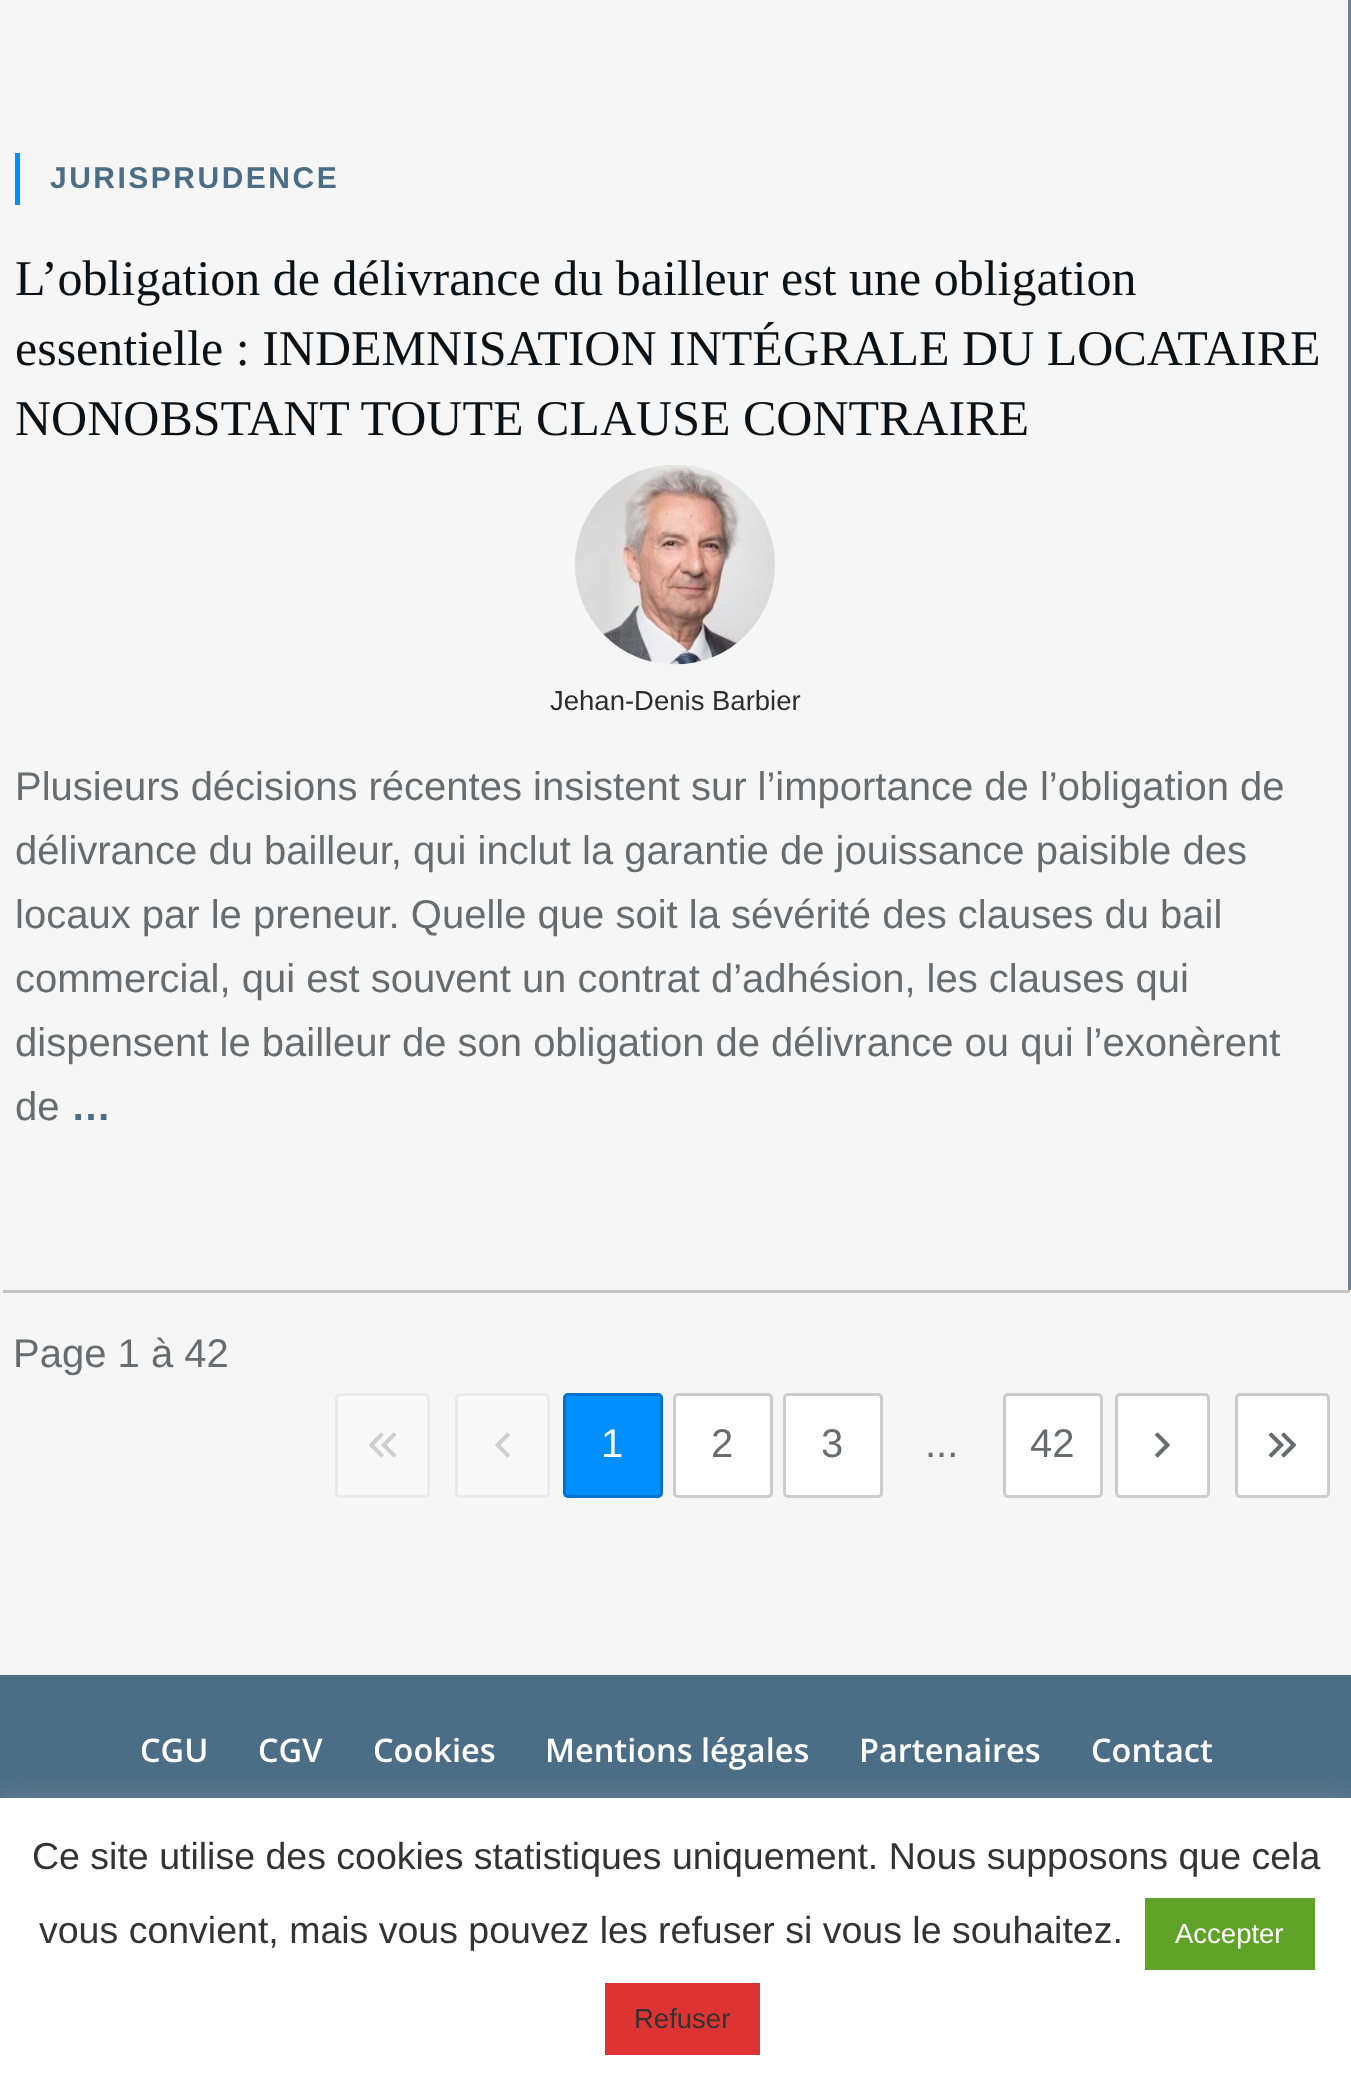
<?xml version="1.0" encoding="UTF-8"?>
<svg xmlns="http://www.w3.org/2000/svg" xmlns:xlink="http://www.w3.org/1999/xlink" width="1351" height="2085">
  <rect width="100%" height="100%" fill="#f6f6f6" />
  <rect x="1348" width="3" height="1290" fill="#658297" />
  <rect x="15" y="153" width="5" height="52" fill="#008fff" />
  <image x="575" y="465" width="200" height="200" xlink:href="image1.png" />
  <rect x="3" y="1290" width="1347" height="3" fill="#c5c5c5" />
  <rect x="336.5" y="1394.5" width="92" height="102" rx="3.5" fill="#f9f9f9" stroke="#eaeaea" stroke-width="3" />
  <image x="369" y="1432" width="27" height="26" xlink:href="image2.png" />
  <rect x="456.5" y="1394.5" width="92" height="102" rx="3.5" fill="#f9f9f9" stroke="#eaeaea" stroke-width="3" />
  <image x="495" y="1432" width="15" height="26" xlink:href="image3.png" />
  <rect x="563" y="1393" width="100" height="105" rx="5" fill="#008fff" />
  <rect x="564.5" y="1394.5" width="97" height="102" rx="3.5" fill="none" stroke="#000000" stroke-opacity="0.2" stroke-width="3" />
  <rect x="673" y="1393" width="100" height="105" rx="5" fill="#ffffff" />
  <rect x="674.5" y="1394.5" width="97" height="102" rx="3.5" fill="none" stroke="#000000" stroke-opacity="0.2" stroke-width="3" />
  <rect x="783" y="1393" width="100" height="105" rx="5" fill="#ffffff" />
  <rect x="784.5" y="1394.5" width="97" height="102" rx="3.5" fill="none" stroke="#000000" stroke-opacity="0.2" stroke-width="3" />
  <rect x="1003" y="1393" width="100" height="105" rx="5" fill="#ffffff" />
  <rect x="1004.5" y="1394.5" width="97" height="102" rx="3.5" fill="none" stroke="#000000" stroke-opacity="0.2" stroke-width="3" />
  <rect x="1115" y="1393" width="95" height="105" rx="5" fill="#ffffff" />
  <rect x="1116.5" y="1394.5" width="92" height="102" rx="3.5" fill="none" stroke="#000000" stroke-opacity="0.2" stroke-width="3" />
  <image x="1155" y="1432" width="15" height="26" xlink:href="image4.png" />
  <rect x="1235" y="1393" width="95" height="105" rx="5" fill="#ffffff" />
  <rect x="1236.5" y="1394.5" width="92" height="102" rx="3.5" fill="none" stroke="#000000" stroke-opacity="0.2" stroke-width="3" />
  <image x="1268" y="1432" width="29" height="26" xlink:href="image5.png" />
  <rect y="1675" width="1351" height="123" fill="#4b6d86" />
  <rect y="1795" width="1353" height="288" fill="#acabab" fill-opacity="0.3" filter="blur(12.5px)" />
  <rect y="1798" width="1351" height="287" fill="#ffffff" />
  <rect x="1145" y="1898" width="170" height="72" fill="#61a229" />
  <rect x="605" y="1983" width="155" height="72" fill="#dd3333" />
  <text x="50" y="188" style="font-family: Liberation Sans; font-size: 30px; font-weight: bold; letter-spacing: 2.5px; fill: #4b6d86">JURISPRUDENCE</text>
  <text x="15" y="295" style="font-family: Liberation Serif; font-size: 50px; fill: #0c1115">L’obligation de délivrance du bailleur est une obligation</text>
  <text x="15" y="365" style="font-family: Liberation Serif; font-size: 50px; fill: #0c1115">essentielle : INDEMNISATION INTÉGRALE DU LOCATAIRE</text>
  <text x="15" y="435" style="font-family: Liberation Serif; font-size: 50px; fill: #0c1115">NONOBSTANT TOUTE CLAUSE CONTRAIRE</text>
  <text x="550" y="710" style="font-family: Liberation Sans; font-size: 27.5px; fill: #2d2d2d">Jehan-Denis Barbier</text>
  <text x="15" y="800" style="font-family: Liberation Sans; font-size: 40px; fill: #6a6b6c">Plusieurs décisions récentes insistent sur l’importance de l’obligation de</text>
  <text x="15" y="864" style="font-family: Liberation Sans; font-size: 40px; fill: #6a6b6c">délivrance du bailleur, qui inclut la garantie de jouissance paisible des</text>
  <text x="15" y="928" style="font-family: Liberation Sans; font-size: 40px; fill: #6a6b6c">locaux par le preneur. Quelle que soit la sévérité des clauses du bail</text>
  <text x="15" y="992" style="font-family: Liberation Sans; font-size: 40px; fill: #6a6b6c">commercial, qui est souvent un contrat d’adhésion, les clauses qui</text>
  <text x="15" y="1056" style="font-family: Liberation Sans; font-size: 40px; fill: #6a6b6c">dispensent le bailleur de son obligation de délivrance ou qui l’exonèrent</text>
  <text x="15" y="1120" style="font-family: Liberation Sans; font-size: 40px; fill: #6a6b6c">de</text>
  <text x="71" y="1120" style="font-family: Liberation Sans; font-size: 40px; font-weight: bold; fill: #4b6d86">…</text>
  <text x="13" y="1367" style="font-family: Liberation Sans; font-size: 40px; fill: #6a6b6c">Page 1 à 42</text>
  <text x="601" y="1457" style="font-family: Liberation Sans; font-size: 40px; fill: #ffffff">1</text>
  <text x="711" y="1457" style="font-family: Liberation Sans; font-size: 40px; fill: #6a6b6c">2</text>
  <text x="821" y="1457" style="font-family: Liberation Sans; font-size: 40px; fill: #6a6b6c">3</text>
  <text x="925" y="1457" style="font-family: Liberation Sans; font-size: 40px; fill: #6a6b6c">...</text>
  <text x="1030" y="1457" style="font-family: Liberation Sans; font-size: 40px; fill: #6a6b6c">42</text>
  <text x="140" y="1762" style="font-family: Open Sans; font-size: 32.5px; font-weight: 600; fill: #ffffff">CGU</text>
  <text x="258" y="1762" style="font-family: Open Sans; font-size: 32.5px; font-weight: 600; fill: #ffffff">CGV</text>
  <text x="373" y="1762" style="font-family: Open Sans; font-size: 32.5px; font-weight: 600; fill: #ffffff">Cookies</text>
  <text x="545" y="1762" style="font-family: Open Sans; font-size: 32.5px; font-weight: 600; fill: #ffffff">Mentions légales</text>
  <text x="859" y="1762" style="font-family: Open Sans; font-size: 32.5px; font-weight: 600; fill: #ffffff">Partenaires</text>
  <text x="1091" y="1762" style="font-family: Open Sans; font-size: 32.5px; font-weight: 600; fill: #ffffff">Contact</text>
  <text x="32" y="1869" style="font-family: Liberation Sans; font-size: 37.5px; fill: #333333">Ce site utilise des cookies statistiques uniquement. Nous supposons que cela</text>
  <text x="39" y="1943" style="font-family: Liberation Sans; font-size: 37.5px; fill: #333333">vous convient, mais vous pouvez les refuser si vous le souhaitez.</text>
  <text x="1175" y="1943" style="font-family: Liberation Sans; font-size: 27.5px; fill: #ffffff">Accepter</text>
  <text x="634" y="2028" style="font-family: Liberation Sans; font-size: 27.5px; fill: #333333">Refuser</text>
</svg>
